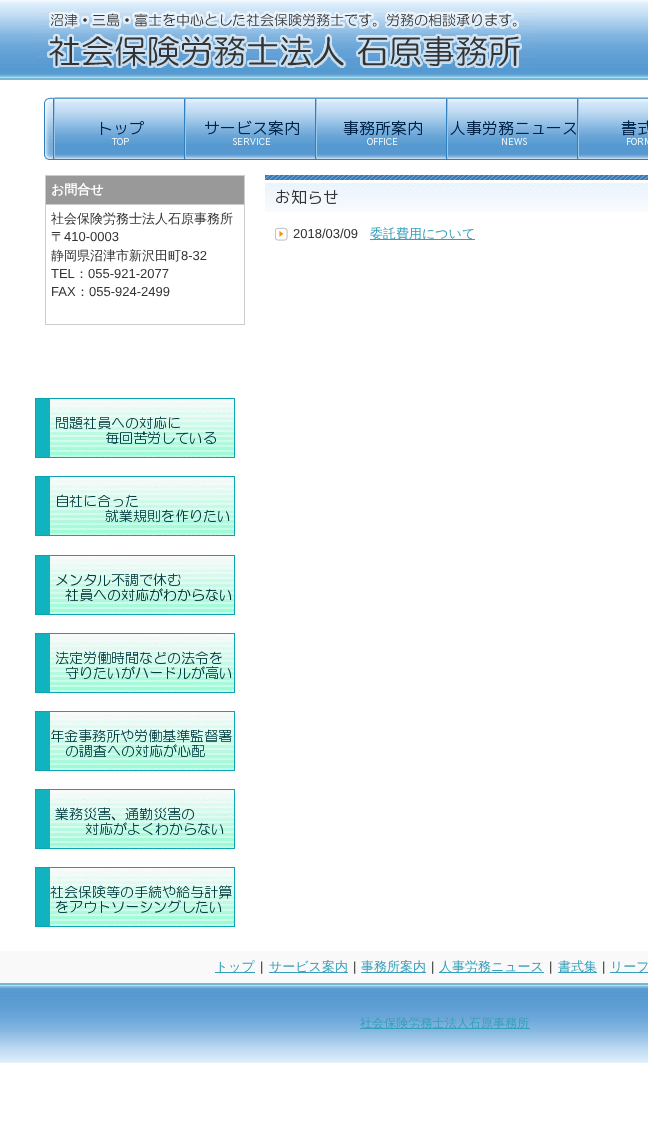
<?xml version="1.0" encoding="UTF-8"?>
<svg xmlns="http://www.w3.org/2000/svg" xmlns:xlink="http://www.w3.org/1999/xlink" width="648" height="1148">
  <rect width="100%" height="100%" fill="#ffffff" />
  <image x="0" y="983" width="648" height="80" xlink:href="image1.png" />
  <image x="0" y="0" width="648" height="80" xlink:href="image2.png" />
  <image x="35" y="11" width="500" height="58" xlink:href="image3.png" />
  <image x="44" y="97" width="604" height="63" xlink:href="image4.png" />
  <image x="55" y="97" width="131" height="62" xlink:href="image5.png" />
  <image x="186" y="97" width="131" height="62" xlink:href="image6.png" />
  <image x="317" y="97" width="131" height="62" xlink:href="image7.png" />
  <image x="448" y="97" width="131" height="62" xlink:href="image8.png" />
  <image x="579" y="97" width="69" height="62" xlink:href="image9.png" />
  <rect x="46" y="176" width="198" height="28" fill="#999999" />
  <rect x="45" y="175" width="200" height="1" fill="#cccccc" />
  <rect x="45" y="204" width="200" height="1" fill="#cccccc" />
  <rect x="244" y="204" width="1" height="121" fill="#cccccc" />
  <rect x="244" y="175" width="1" height="30" fill="#cccccc" />
  <rect x="45" y="324" width="200" height="1" fill="#cccccc" />
  <rect x="45" y="204" width="1" height="121" fill="#cccccc" />
  <rect x="45" y="175" width="1" height="30" fill="#cccccc" />
  <image x="35" y="398" width="200" height="60" xlink:href="image10.png" />
  <image x="35" y="476" width="200" height="60" xlink:href="image11.png" />
  <image x="35" y="555" width="200" height="60" xlink:href="image12.png" />
  <image x="35" y="633" width="200" height="60" xlink:href="image13.png" />
  <image x="35" y="711" width="200" height="60" xlink:href="image14.png" />
  <image x="35" y="789" width="200" height="60" xlink:href="image15.png" />
  <image x="35" y="867" width="200" height="60" xlink:href="image16.png" />
  <image x="265" y="175" width="383" height="37" xlink:href="image17.png" />
  <image x="275" y="227" width="13" height="14" xlink:href="image18.png" />
  <rect x="370" y="239" width="105" height="1" fill="#369fba" />
  <rect y="951" width="648" height="32" fill="#f9f9f9" />
  <rect x="215" y="972" width="40" height="1" fill="#369fba" />
  <rect x="269" y="972" width="79" height="1" fill="#369fba" />
  <rect x="361" y="972" width="65" height="1" fill="#369fba" />
  <rect x="439" y="972" width="105" height="1" fill="#369fba" />
  <rect x="558" y="972" width="39" height="1" fill="#369fba" />
  <rect x="610" y="972" width="38" height="1" fill="#369fba" />
  <rect x="360" y="1028" width="170" height="1" fill="#369fba" />
  <text x="51" y="194" style="font-family: WenQuanYi Zen Hei; font-size: 13px; font-weight: bold; fill: #ffffff">お問合せ</text>
  <text x="51" y="223" style="font-family: WenQuanYi Zen Hei; font-size: 13px; font-weight: 500; fill: #333333">社会保険労務士法人石原事務所</text>
  <text x="51" y="241" style="font-family: WenQuanYi Zen Hei; font-size: 13px; font-weight: 500; fill: #333333">〒</text>
  <text x="64" y="241" style="font-family: Liberation Sans; font-size: 13px; fill: #333333">410-0003</text>
  <text x="51" y="260" style="font-family: WenQuanYi Zen Hei; font-size: 13px; font-weight: 500; fill: #333333">静岡県沼津市新沢田町</text>
  <text x="181" y="260" style="font-family: Liberation Sans; font-size: 13px; fill: #333333">8-32</text>
  <text x="51" y="278" style="font-family: Liberation Sans; font-size: 13px; fill: #333333">TEL</text>
  <text x="75" y="278" style="font-family: WenQuanYi Zen Hei; font-size: 13px; font-weight: 500; fill: #333333">：</text>
  <text x="88" y="278" style="font-family: Liberation Sans; font-size: 13px; fill: #333333">055-921-2077</text>
  <text x="51" y="296" style="font-family: Liberation Sans; font-size: 13px; fill: #333333">FAX</text>
  <text x="76" y="296" style="font-family: WenQuanYi Zen Hei; font-size: 13px; font-weight: 500; fill: #333333">：</text>
  <text x="89" y="296" style="font-family: Liberation Sans; font-size: 13px; fill: #333333">055-924-2499</text>
  <text x="293" y="238" style="font-family: Liberation Sans; font-size: 13px; fill: #333333">2018/03/09</text>
  <text x="370" y="238" style="font-family: WenQuanYi Zen Hei; font-size: 13px; font-weight: 500; fill: #369fba">委託費用について</text>
  <text x="215" y="971" style="font-family: WenQuanYi Zen Hei; font-size: 13px; font-weight: 500; fill: #369fba">トップ</text>
  <text x="260" y="971" style="font-family: Liberation Sans; font-size: 13px; fill: #333333">|</text>
  <text x="269" y="971" style="font-family: WenQuanYi Zen Hei; font-size: 13px; font-weight: 500; fill: #369fba">サービス案内</text>
  <text x="353" y="971" style="font-family: Liberation Sans; font-size: 13px; fill: #333333">|</text>
  <text x="361" y="971" style="font-family: WenQuanYi Zen Hei; font-size: 13px; font-weight: 500; fill: #369fba">事務所案内</text>
  <text x="431" y="971" style="font-family: Liberation Sans; font-size: 13px; fill: #333333">|</text>
  <text x="439" y="971" style="font-family: WenQuanYi Zen Hei; font-size: 13px; font-weight: 500; fill: #369fba">人事労務ニュース</text>
  <text x="549" y="971" style="font-family: Liberation Sans; font-size: 13px; fill: #333333">|</text>
  <text x="558" y="971" style="font-family: WenQuanYi Zen Hei; font-size: 13px; font-weight: 500; fill: #369fba">書式集</text>
  <text x="602" y="971" style="font-family: Liberation Sans; font-size: 13px; fill: #333333">|</text>
  <text x="610" y="971" style="font-family: WenQuanYi Zen Hei; font-size: 13px; font-weight: 500; fill: #369fba">リーフ</text>
  <text x="360" y="1027" style="font-family: WenQuanYi Zen Hei; font-size: 12.1px; font-weight: 500; fill: #369fba">社会保険労務士法人石原事務所</text>
</svg>
